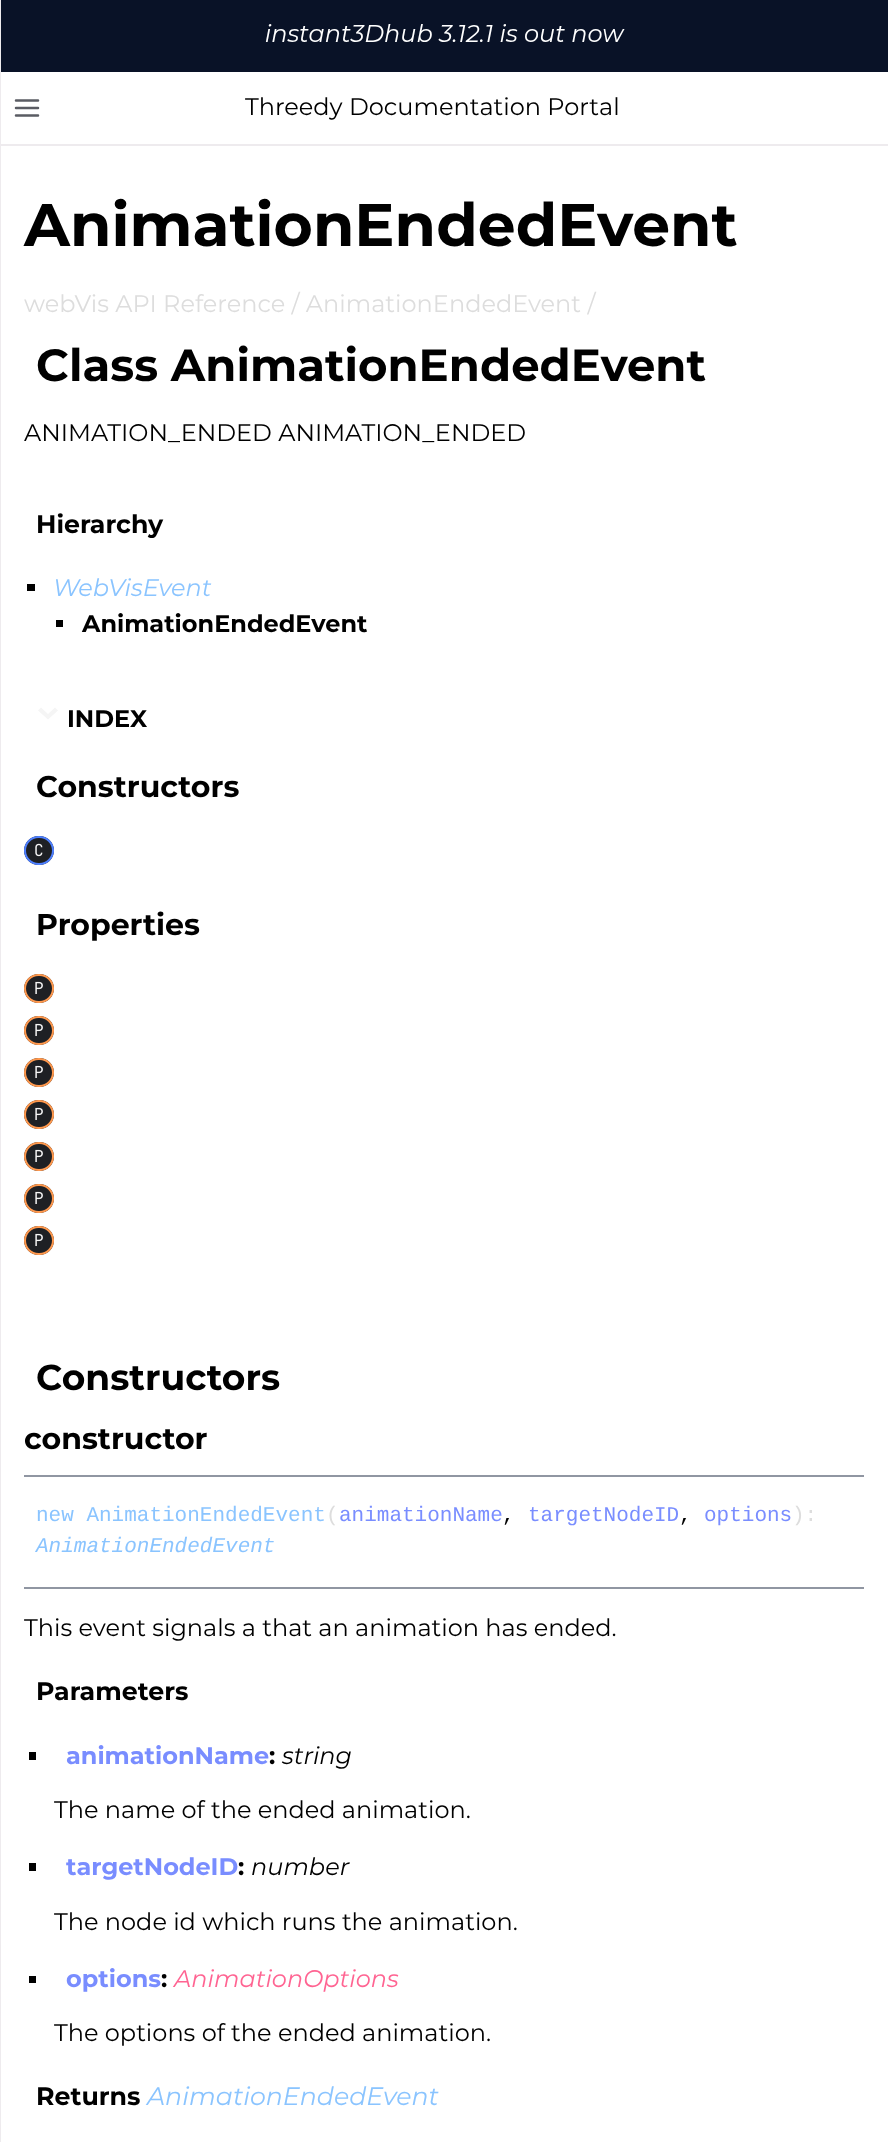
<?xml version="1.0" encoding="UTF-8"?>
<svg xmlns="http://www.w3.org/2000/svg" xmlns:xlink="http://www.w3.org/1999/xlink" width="888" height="2142">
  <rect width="100%" height="100%" fill="#ffffff" />
  <rect x="1" width="887" height="72" fill="#091227" />
  <image x="265" y="24" width="360" height="18" xlink:href="image1.png" />
  <rect y="144" width="888" height="2" fill="#eeebee" />
  <rect width="1" height="2142" fill="#eeebee" />
  <path d="M 16 108 h 22 m -22 -7.5 h 22 m -22 15 h 22" fill="none" stroke="#5a5c63" stroke-width="2.5" stroke-linecap="round" stroke-linejoin="round" />
  <rect x="27" y="584" width="8" height="7" fill="#000000" />
  <rect x="56" y="620" width="7" height="7" fill="#000000" />
  <path d="M 38 710.5 l 10 9 l 10 -9 l -3 -3 l -7 6.5 l -7 -6.5 z" fill="#f5f5f5" />
  <image x="24" y="836" width="30" height="29" xlink:href="image2.png" />
  <image x="24" y="974" width="30" height="29" xlink:href="image3.png" />
  <image x="24" y="1016" width="30" height="29" xlink:href="image3.png" />
  <image x="24" y="1058" width="30" height="29" xlink:href="image3.png" />
  <image x="24" y="1100" width="30" height="29" xlink:href="image3.png" />
  <image x="24" y="1142" width="30" height="29" xlink:href="image3.png" />
  <image x="24" y="1184" width="30" height="29" xlink:href="image3.png" />
  <image x="24" y="1226" width="30" height="29" xlink:href="image3.png" />
  <rect x="24" y="1475" width="840" height="2" fill="#9096a2" />
  <rect x="24" y="1587" width="840" height="2" fill="#9096a2" />
  <rect x="29" y="1752" width="7" height="8" fill="#000000" />
  <rect x="29" y="1863" width="7" height="8" fill="#000000" />
  <rect x="29" y="1976" width="7" height="7" fill="#000000" />
  <text x="245" y="115" style="font-family: Montserrat; font-size: 24px; fill: #000000">Threedy Documentation Portal</text>
  <text x="24" y="246" style="font-family: Montserrat; font-size: 60px; font-weight: bold; fill: #000000">AnimationEndedEvent</text>
  <text x="24" y="312" style="font-family: Montserrat; font-size: 24px; fill: #dddddd">webVis API Reference / AnimationEndedEvent /</text>
  <text x="36" y="381" style="font-family: Montserrat; font-size: 45px; font-weight: bold; fill: #000000">Class AnimationEndedEvent</text>
  <text x="24" y="441" style="font-family: Montserrat; font-size: 24px; fill: #000000">ANIMATION_ENDED ANIMATION_ENDED</text>
  <text x="36" y="533" style="font-family: Montserrat; font-size: 25.25px; font-weight: bold; fill: #000000">Hierarchy</text>
  <text x="53" y="596" style="font-family: Montserrat; font-size: 24px; font-style: italic; fill: #8ac4ff">WebVisEvent</text>
  <text x="82" y="632" style="font-family: Montserrat; font-size: 24px; font-weight: bold; fill: #000000">AnimationEndedEvent</text>
  <text x="67" y="727" style="font-family: Montserrat; font-size: 24px; font-weight: bold; fill: #000000">INDEX</text>
  <text x="36" y="797" style="font-family: Montserrat; font-size: 30px; font-weight: bold; fill: #000000">Constructors</text>
  <text x="36" y="935" style="font-family: Montserrat; font-size: 30px; font-weight: bold; fill: #000000">Properties</text>
  <text x="36" y="1390" style="font-family: Montserrat; font-size: 36px; font-weight: bold; fill: #000000">Constructors</text>
  <text x="24" y="1449" style="font-family: Montserrat; font-size: 30px; font-weight: bold; fill: #000000">constructor</text>
  <text x="36" y="1521" style="font-family: Liberation Mono; font-size: 21px; fill: #8ac4ff">new AnimationEndedEvent</text>
  <text x="326" y="1521" style="font-family: Liberation Mono; font-size: 21px; fill: #dddddd">(</text>
  <text x="339" y="1521" style="font-family: Liberation Mono; font-size: 21px; fill: #798dff">animationName</text>
  <text x="502" y="1521" style="font-family: Liberation Mono; font-size: 21px; fill: #000000">,</text>
  <text x="528" y="1521" style="font-family: Liberation Mono; font-size: 21px; fill: #798dff">targetNodeID</text>
  <text x="679" y="1521" style="font-family: Liberation Mono; font-size: 21px; fill: #000000">,</text>
  <text x="704" y="1521" style="font-family: Liberation Mono; font-size: 21px; fill: #798dff">options</text>
  <text x="792" y="1521" style="font-family: Liberation Mono; font-size: 21px; fill: #dddddd">):</text>
  <text x="36" y="1552" style="font-family: Liberation Mono; font-size: 21px; font-style: italic; fill: #8ac4ff">AnimationEndedEvent</text>
  <text x="24" y="1636" style="font-family: Montserrat; font-size: 24px; fill: #000000">This event signals a that an animation has ended.</text>
  <text x="36" y="1700" style="font-family: Montserrat; font-size: 25.25px; font-weight: bold; fill: #000000">Parameters</text>
  <text x="66" y="1764" style="font-family: Montserrat; font-size: 24px; font-weight: bold; fill: #798dff">animationName</text>
  <text x="269" y="1764" style="font-family: Montserrat; font-size: 24px; font-weight: bold; fill: #000000">:</text>
  <text x="282" y="1764" style="font-family: Montserrat; font-size: 24px; font-style: italic; fill: #000000">string</text>
  <text x="54" y="1818" style="font-family: Montserrat; font-size: 24px; fill: #000000">The name of the ended animation.</text>
  <text x="66" y="1875" style="font-family: Montserrat; font-size: 24px; font-weight: bold; fill: #798dff">targetNodeID</text>
  <text x="238" y="1875" style="font-family: Montserrat; font-size: 24px; font-weight: bold; fill: #000000">:</text>
  <text x="251" y="1875" style="font-family: Montserrat; font-size: 24px; font-style: italic; fill: #000000">number</text>
  <text x="54" y="1930" style="font-family: Montserrat; font-size: 24px; fill: #000000">The node id which runs the animation.</text>
  <text x="66" y="1987" style="font-family: Montserrat; font-size: 24px; font-weight: bold; fill: #798dff">options</text>
  <text x="161" y="1987" style="font-family: Montserrat; font-size: 24px; font-weight: bold; fill: #000000">:</text>
  <text x="174" y="1987" style="font-family: Montserrat; font-size: 24px; font-style: italic; fill: #ff6492">AnimationOptions</text>
  <text x="54" y="2041" style="font-family: Montserrat; font-size: 24px; fill: #000000">The options of the ended animation.</text>
  <text x="36" y="2105" style="font-family: Montserrat; font-size: 25.25px; font-weight: bold; fill: #000000">Returns</text>
  <text x="147" y="2105" style="font-family: Montserrat; font-size: 25.25px; font-style: italic; fill: #8ac4ff">AnimationEndedEvent</text>
</svg>
